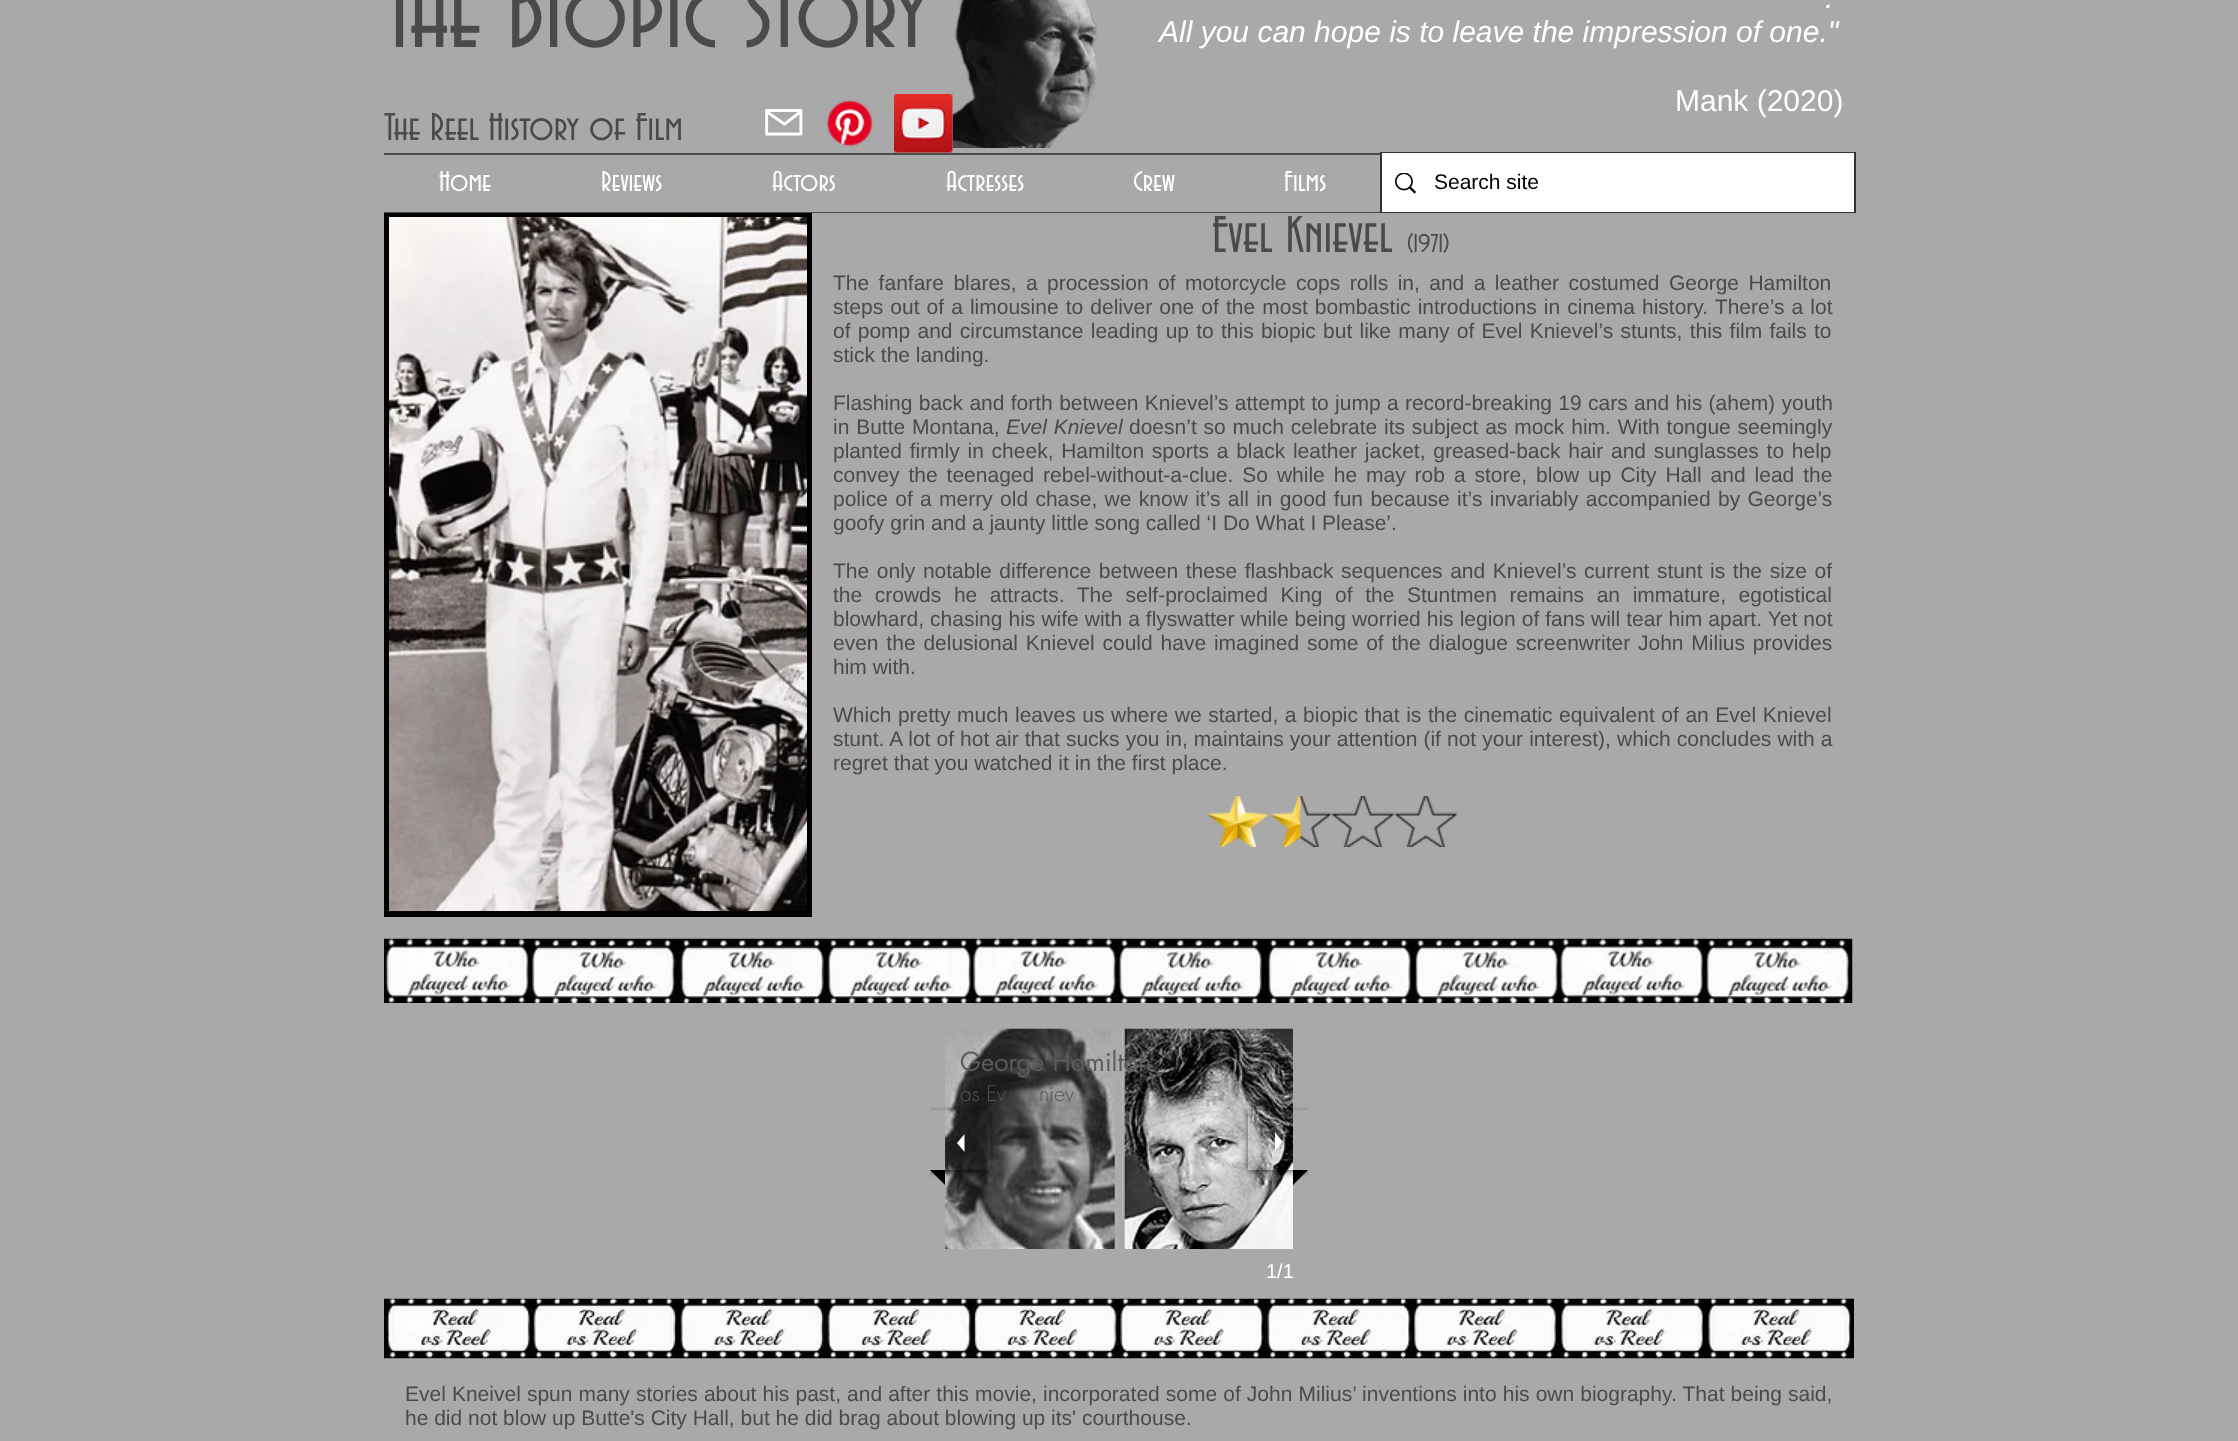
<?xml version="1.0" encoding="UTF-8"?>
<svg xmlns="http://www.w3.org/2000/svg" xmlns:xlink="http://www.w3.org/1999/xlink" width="2238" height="1441">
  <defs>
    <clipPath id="clip1"><rect x="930" y="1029" width="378" height="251" /></clipPath>
    <clipPath id="clip2"><path d="M 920 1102 h 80 v 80 h -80 z m 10 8 h 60 v 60 h -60 z" clip-rule="evenodd" /></clipPath>
    <clipPath id="clip3"><path d="M 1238 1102 h 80 v 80 h -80 z m 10 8 h 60 v 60 h -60 z" clip-rule="evenodd" /></clipPath>
  </defs>
  <rect width="100%" height="100%" fill="#a9a9a9" />
  <image x="894" y="94" width="59" height="59" xlink:href="image4.png" />
  <image x="952" y="0" width="145" height="148" xlink:href="image1.png" />
  <image x="765" y="109" width="38" height="27" xlink:href="image2.png" />
  <image x="826" y="100" width="47" height="47" xlink:href="image3.png" />
  <rect x="384" y="153" width="998" height="2" fill="#4a4a4a" />
  <rect x="384" y="212" width="998" height="1" fill="#4a4a4a" />
  <rect x="1381" y="153" width="474" height="59" fill="none" stroke="#323232" stroke-width="2" />
  <rect x="1382" y="153" width="472" height="59" fill="#ffffff" />
  <image x="1395" y="173" width="21" height="21" xlink:href="image5.png" />
  <rect x="384" y="213" width="428" height="704" fill="#000000" />
  <image x="389" y="217" width="418" height="695" xlink:href="image6.png" />
  <image x="1207" y="796" width="251" height="51" xlink:href="image7.png" />
  <image x="384" y="938" width="1469" height="65" xlink:href="image8.png" />
  <image x="945" y="1028" width="348" height="221" xlink:href="image9.png" />
  <g clip-path="url(#clip1)">
    <g clip-path="url(#clip2)">
      <rect x="930" y="1112" width="60" height="60" fill="#000000" fill-opacity="0.6" filter="blur(3px)" />
    </g>
  </g>
  <path d="M 964.5 1134 v 18 l -7.5 -9 z" fill="#ffffff" />
  <path d="M 945 1170 v 15 l -15 -15 z" fill="#000000" />
  <g clip-path="url(#clip1)">
    <g clip-path="url(#clip3)">
      <rect x="1248" y="1112" width="60" height="60" fill="#000000" fill-opacity="0.6" filter="blur(3px)" />
    </g>
  </g>
  <path d="M 1275 1150.5 v -18 l 7.5 9 z" fill="#ffffff" />
  <path d="M 1293 1185 v -15 h 15 z" fill="#000000" />
  <image x="384" y="1298" width="1470" height="61" xlink:href="image10.png" />
  <text x="384" y="47" style="font-family: 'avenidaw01'; font-size: 108px; fill: #4a4a4a">The Biopic Story</text>
  <text x="1825" y="8" style="font-family: Liberation Sans; font-size: 30px; font-style: italic; fill: #ffffff">.</text>
  <text x="1159" y="42" style="font-family: Liberation Sans; font-size: 30px; font-style: italic; fill: #ffffff">All you can hope is to leave the impression of one."</text>
  <text x="1675" y="111" style="font-family: Liberation Sans; font-size: 30px; fill: #ffffff">Mank (2020)</text>
  <text x="384" y="140" style="font-family: 'avenidaw01'; font-size: 40.5px; fill: #4a4a4a">The Reel History of Film</text>
  <text x="439" y="191" style="font-family: 'avenidaw01'; font-size: 30px; fill: #ffffff">Home</text>
  <text x="601" y="191" style="font-family: 'avenidaw01'; font-size: 30px; fill: #ffffff">Reviews</text>
  <text x="772" y="191" style="font-family: 'avenidaw01'; font-size: 30px; fill: #ffffff">Actors</text>
  <text x="946" y="191" style="font-family: 'avenidaw01'; font-size: 30px; fill: #ffffff">Actresses</text>
  <text x="1133" y="191" style="font-family: 'avenidaw01'; font-size: 30px; fill: #ffffff">Crew</text>
  <text x="1284" y="191" style="font-family: 'avenidaw01'; font-size: 30px; fill: #ffffff">Films</text>
  <text x="1434" y="189" style="font-family: Liberation Sans; font-size: 21px; fill: #000000">Search site</text>
  <text x="1212" y="252" style="font-family: 'avenidaw01'; font-size: 54px; fill: #4a4a4a">Evel Knievel</text>
  <text x="1406" y="252" style="font-family: 'avenidaw01'; font-size: 27px; fill: #4a4a4a">(1971)</text>
  <text x="833" y="290" word-spacing="3.6" style="font-family: Liberation Sans; font-size: 21px; fill: #4a4a4a">The fanfare blares, a procession of motorcycle cops rolls in, and a leather costumed George Hamilton</text>
  <text x="833" y="314" word-spacing="1.25" style="font-family: Liberation Sans; font-size: 21px; fill: #4a4a4a">steps out of a limousine to deliver one of the most bombastic introductions in cinema history. There’s a lot</text>
  <text x="833" y="338" word-spacing="1.4" style="font-family: Liberation Sans; font-size: 21px; fill: #4a4a4a">of pomp and circumstance leading up to this biopic but like many of Evel Knievel’s stunts, this film fails to</text>
  <text x="833" y="362" style="font-family: Liberation Sans; font-size: 21px; fill: #4a4a4a">stick the landing.</text>
  <text x="833" y="410" word-spacing="0.5" style="font-family: Liberation Sans; font-size: 21px; fill: #4a4a4a">Flashing back and forth between Knievel’s attempt to jump a record-breaking 19 cars and his (ahem) youth</text>
  <text x="833" y="434" word-spacing="1" style="font-family: Liberation Sans; font-size: 21px; fill: #4a4a4a">in Butte Montana,</text>
  <text x="1006" y="434" word-spacing="1" style="font-family: Liberation Sans; font-size: 21px; font-style: italic; fill: #4a4a4a">Evel Knievel</text>
  <text x="1129" y="434" word-spacing="1" style="font-family: Liberation Sans; font-size: 21px; fill: #4a4a4a">doesn’t so much celebrate its subject as mock him. With tongue seemingly</text>
  <text x="833" y="458" word-spacing="1.9" style="font-family: Liberation Sans; font-size: 21px; fill: #4a4a4a">planted firmly in cheek, Hamilton sports a black leather jacket, greased-back hair and sunglasses to help</text>
  <text x="833" y="482" word-spacing="3.1" style="font-family: Liberation Sans; font-size: 21px; fill: #4a4a4a">convey the teenaged rebel-without-a-clue. So while he may rob a store, blow up City Hall and lead the</text>
  <text x="833" y="506" word-spacing="1.5" style="font-family: Liberation Sans; font-size: 21px; fill: #4a4a4a">police of a merry old chase, we know it’s all in good fun because it’s invariably accompanied by George’s</text>
  <text x="833" y="530" style="font-family: Liberation Sans; font-size: 21px; fill: #4a4a4a">goofy grin and a jaunty little song called ‘I Do What I Please’.</text>
  <text x="833" y="578" word-spacing="1.75" style="font-family: Liberation Sans; font-size: 21px; fill: #4a4a4a">The only notable difference between these flashback sequences and Knievel’s current stunt is the size of</text>
  <text x="833" y="602" word-spacing="6.75" style="font-family: Liberation Sans; font-size: 21px; fill: #4a4a4a">the crowds he attracts. The self-proclaimed King of the Stuntmen remains an immature, egotistical</text>
  <text x="833" y="626" word-spacing="0.2" style="font-family: Liberation Sans; font-size: 21px; fill: #4a4a4a">blowhard, chasing his wife with a flyswatter while being worried his legion of fans will tear him apart. Yet not</text>
  <text x="833" y="650" word-spacing="2" style="font-family: Liberation Sans; font-size: 21px; fill: #4a4a4a">even the delusional Knievel could have imagined some of the dialogue screenwriter John Milius provides</text>
  <text x="833" y="674" style="font-family: Liberation Sans; font-size: 21px; fill: #4a4a4a">him with.</text>
  <text x="833" y="722" word-spacing="0.75" style="font-family: Liberation Sans; font-size: 21px; fill: #4a4a4a">Which pretty much leaves us where we started, a biopic that is the cinematic equivalent of an Evel Knievel</text>
  <text x="833" y="746" word-spacing="0.25" style="font-family: Liberation Sans; font-size: 21px; fill: #4a4a4a">stunt. A lot of hot air that sucks you in, maintains your attention (if not your interest), which concludes with a</text>
  <text x="833" y="770" style="font-family: Liberation Sans; font-size: 21px; fill: #4a4a4a">regret that you watched it in the first place.</text>
  <text x="960" y="1071" style="font-family: futura; font-size: 25.5px; fill: #5b5b5b">George Hamilton</text>
  <text x="960" y="1101" style="font-family: futura; font-size: 21px; font-weight: 300; fill: #555555">as Ev</text>
  <text x="1039" y="1101" style="font-family: futura; font-size: 21px; font-weight: 300; fill: #555555">niev</text>
  <text x="1266" y="1278" style="font-family: Liberation Sans; font-size: 20px; fill: #ffffff">1/1</text>
  <text x="405" y="1401" word-spacing="0.25" style="font-family: Liberation Sans; font-size: 21px; fill: #4a4a4a">Evel Kneivel spun many stories about his past, and after this movie, incorporated some of John Milius’ inventions into his own biography. That being said,</text>
  <text x="405" y="1425" style="font-family: Liberation Sans; font-size: 21px; fill: #4a4a4a">he did not blow up Butte's City Hall, but he did brag about blowing up its' courthouse.</text>
</svg>
